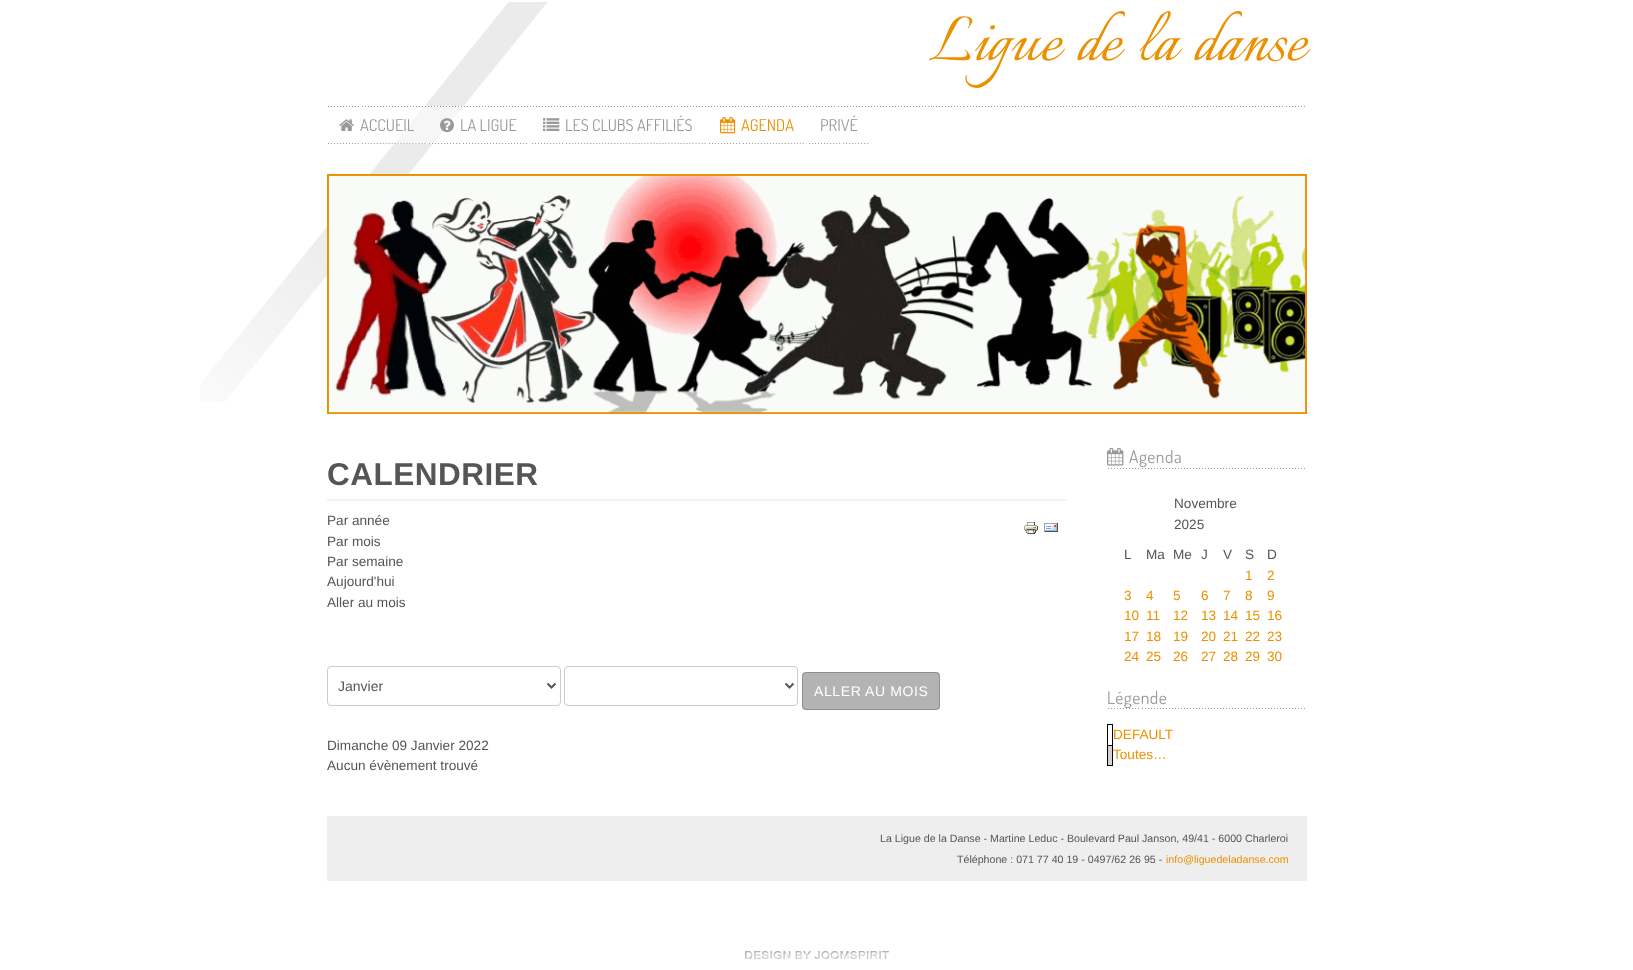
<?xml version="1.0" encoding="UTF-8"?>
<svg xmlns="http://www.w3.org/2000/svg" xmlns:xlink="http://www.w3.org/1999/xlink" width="1633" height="970">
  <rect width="100%" height="100%" fill="#ffffff" />
  <image x="200" y="2" width="347" height="400" xlink:href="image1.png" />
  <rect x="394" y="106" width="70" height="38" fill="#ffffff" fill-opacity="0.55" />
  <image x="328" y="106" width="977" height="1" xlink:href="image2.png" />
  <image x="328" y="143" width="98" height="1" xlink:href="image3.png" />
  <image x="339" y="119" width="15" height="12" xlink:href="image4.png" />
  <image x="428" y="143" width="100" height="1" xlink:href="image5.png" />
  <image x="440" y="118" width="14" height="15" xlink:href="image6.png" />
  <image x="532" y="143" width="174" height="1" xlink:href="image7.png" />
  <image x="543" y="118" width="17" height="13" xlink:href="image8.png" />
  <image x="709" y="143" width="97" height="1" xlink:href="image9.png" />
  <image x="720" y="117" width="16" height="17" xlink:href="image10.png" />
  <image x="809" y="143" width="60" height="1" xlink:href="image11.png" />
  <rect x="328" y="175" width="978" height="238" fill="none" stroke="#ec9001" stroke-width="2" />
  <image x="328" y="175" width="978" height="238" xlink:href="image12.png" />
  <rect x="327" y="499" width="740" height="2" fill="#f2f2f2" />
  <image x="1024" y="522" width="14" height="12" xlink:href="image13.png" />
  <image x="1044" y="523" width="14" height="9" xlink:href="image14.png" />
  <rect x="327.5" y="666.5" width="233" height="39" rx="3.5" fill="none" stroke="#cccccc" />
  <path d="M 547.5 683.5 l 4 4 l 4 -4" fill="none" stroke="#555555" stroke-width="2" />
  <rect x="564.5" y="666.5" width="233" height="39" rx="3.5" fill="none" stroke="#cccccc" />
  <path d="M 785.5 683.5 l 4 4 l 4 -4" fill="none" stroke="#555555" stroke-width="2" />
  <rect x="802" y="672" width="138" height="38" rx="4" fill="#b3b3b3" />
  <rect x="802.5" y="672.5" width="137" height="37" rx="3.5" fill="none" stroke="#000000" stroke-opacity="0.2" />
  <image x="1108" y="468" width="197" height="1" xlink:href="image15.png" />
  <image x="1107" y="447" width="17" height="19" xlink:href="image16.png" />
  <image x="1108" y="708" width="197" height="1" xlink:href="image15.png" />
  <rect x="1107" y="724" width="6" height="1" fill="#000000" />
  <rect x="1108" y="745" width="4" height="21" fill="#d3d3d3" />
  <rect x="1107" y="745" width="6" height="1" fill="#000000" />
  <rect x="1112" y="745" width="1" height="21" fill="#000000" />
  <rect x="1112" y="724" width="1" height="22" fill="#000000" />
  <rect x="1107" y="765" width="6" height="1" fill="#000000" />
  <rect x="1107" y="745" width="1" height="21" fill="#000000" />
  <rect x="1107" y="724" width="1" height="22" fill="#000000" />
  <rect x="327" y="816" width="980" height="65" fill="#eeeeee" />
  <image x="745" y="951" width="144" height="8" xlink:href="image17.png" />
  <text x="929" y="60" word-spacing="3" style="font-family: Italianno; font-size: 80px; fill: #ec9001">Ligue de la danse</text>
  <text x="360" y="131" style="font-family: Dosis; font-size: 16.25px; fill: #999999">ACCUEIL</text>
  <text x="460" y="131" style="font-family: Dosis; font-size: 16.25px; fill: #999999">LA LIGUE</text>
  <text x="565" y="131" style="font-family: Dosis; font-size: 16.25px; fill: #999999">LES CLUBS AFFILIÉS</text>
  <text x="741" y="131" style="font-family: Dosis; font-size: 16.25px; fill: #ec9001">AGENDA</text>
  <text x="820" y="131" style="font-family: Dosis; font-size: 16.25px; fill: #999999">PRIVÉ</text>
  <text x="327" y="485" style="font-family: Liberation Sans; font-size: 31.5px; font-weight: bold; letter-spacing: 0.5px; fill: #555555">CALENDRIER</text>
  <text x="327" y="525" style="font-family: Liberation Sans; font-size: 13.6px; fill: #555555">Par année</text>
  <text x="327" y="546" style="font-family: Liberation Sans; font-size: 13.6px; fill: #555555">Par mois</text>
  <text x="327" y="566" style="font-family: Liberation Sans; font-size: 13.6px; fill: #555555">Par semaine</text>
  <text x="327" y="586" style="font-family: Liberation Sans; font-size: 13.6px; fill: #555555">Aujourd'hui</text>
  <text x="327" y="607" style="font-family: Liberation Sans; font-size: 13.6px; fill: #555555">Aller au mois</text>
  <text x="338" y="691" style="font-family: Liberation Sans; font-size: 14px; fill: #555555">Janvier</text>
  <text x="814" y="696" style="font-family: Liberation Sans; font-size: 14px; letter-spacing: 0.6px; fill: #ffffff">ALLER AU MOIS</text>
  <text x="327" y="750" style="font-family: Liberation Sans; font-size: 13.6px; fill: #555555">Dimanche 09 Janvier 2022</text>
  <text x="327" y="770" style="font-family: Liberation Sans; font-size: 13.6px; fill: #555555">Aucun évènement trouvé</text>
  <text x="1129" y="463" style="font-family: Dosis; font-size: 17.5px; letter-spacing: 0.5px; fill: #999999">Agenda</text>
  <text x="1174" y="508" style="font-family: Liberation Sans; font-size: 13.6px; fill: #555555">Novembre</text>
  <text x="1174" y="529" style="font-family: Liberation Sans; font-size: 13.6px; fill: #555555">2025</text>
  <text x="1124" y="559" style="font-family: Liberation Sans; font-size: 13.6px; fill: #555555">L</text>
  <text x="1146" y="559" style="font-family: Liberation Sans; font-size: 13.6px; fill: #555555">Ma</text>
  <text x="1173" y="559" style="font-family: Liberation Sans; font-size: 13.6px; fill: #555555">Me</text>
  <text x="1201" y="559" style="font-family: Liberation Sans; font-size: 13.6px; fill: #555555">J</text>
  <text x="1223" y="559" style="font-family: Liberation Sans; font-size: 13.6px; fill: #555555">V</text>
  <text x="1245" y="559" style="font-family: Liberation Sans; font-size: 13.6px; fill: #555555">S</text>
  <text x="1267" y="559" style="font-family: Liberation Sans; font-size: 13.6px; fill: #555555">D</text>
  <text x="1245" y="580" style="font-family: Liberation Sans; font-size: 13.6px; fill: #ec9001">1</text>
  <text x="1267" y="580" style="font-family: Liberation Sans; font-size: 13.6px; fill: #ec9001">2</text>
  <text x="1124" y="600" style="font-family: Liberation Sans; font-size: 13.6px; fill: #ec9001">3</text>
  <text x="1146" y="600" style="font-family: Liberation Sans; font-size: 13.6px; fill: #ec9001">4</text>
  <text x="1173" y="600" style="font-family: Liberation Sans; font-size: 13.6px; fill: #ec9001">5</text>
  <text x="1201" y="600" style="font-family: Liberation Sans; font-size: 13.6px; fill: #ec9001">6</text>
  <text x="1223" y="600" style="font-family: Liberation Sans; font-size: 13.6px; fill: #ec9001">7</text>
  <text x="1245" y="600" style="font-family: Liberation Sans; font-size: 13.6px; fill: #ec9001">8</text>
  <text x="1267" y="600" style="font-family: Liberation Sans; font-size: 13.6px; fill: #ec9001">9</text>
  <text x="1124" y="620" style="font-family: Liberation Sans; font-size: 13.6px; fill: #ec9001">10</text>
  <text x="1146" y="620" style="font-family: Liberation Sans; font-size: 13.6px; fill: #ec9001">11</text>
  <text x="1173" y="620" style="font-family: Liberation Sans; font-size: 13.6px; fill: #ec9001">12</text>
  <text x="1201" y="620" style="font-family: Liberation Sans; font-size: 13.6px; fill: #ec9001">13</text>
  <text x="1223" y="620" style="font-family: Liberation Sans; font-size: 13.6px; fill: #ec9001">14</text>
  <text x="1245" y="620" style="font-family: Liberation Sans; font-size: 13.6px; fill: #ec9001">15</text>
  <text x="1267" y="620" style="font-family: Liberation Sans; font-size: 13.6px; fill: #ec9001">16</text>
  <text x="1124" y="641" style="font-family: Liberation Sans; font-size: 13.6px; fill: #ec9001">17</text>
  <text x="1146" y="641" style="font-family: Liberation Sans; font-size: 13.6px; fill: #ec9001">18</text>
  <text x="1173" y="641" style="font-family: Liberation Sans; font-size: 13.6px; fill: #ec9001">19</text>
  <text x="1201" y="641" style="font-family: Liberation Sans; font-size: 13.6px; fill: #ec9001">20</text>
  <text x="1223" y="641" style="font-family: Liberation Sans; font-size: 13.6px; fill: #ec9001">21</text>
  <text x="1245" y="641" style="font-family: Liberation Sans; font-size: 13.6px; fill: #ec9001">22</text>
  <text x="1267" y="641" style="font-family: Liberation Sans; font-size: 13.6px; fill: #ec9001">23</text>
  <text x="1124" y="661" style="font-family: Liberation Sans; font-size: 13.6px; fill: #ec9001">24</text>
  <text x="1146" y="661" style="font-family: Liberation Sans; font-size: 13.6px; fill: #ec9001">25</text>
  <text x="1173" y="661" style="font-family: Liberation Sans; font-size: 13.6px; fill: #ec9001">26</text>
  <text x="1201" y="661" style="font-family: Liberation Sans; font-size: 13.6px; fill: #ec9001">27</text>
  <text x="1223" y="661" style="font-family: Liberation Sans; font-size: 13.6px; fill: #ec9001">28</text>
  <text x="1245" y="661" style="font-family: Liberation Sans; font-size: 13.6px; fill: #ec9001">29</text>
  <text x="1267" y="661" style="font-family: Liberation Sans; font-size: 13.6px; fill: #ec9001">30</text>
  <text x="1107" y="704" style="font-family: Dosis; font-size: 17.5px; letter-spacing: 0.5px; fill: #999999">Légende</text>
  <text x="1113" y="739" style="font-family: Liberation Sans; font-size: 13.6px; fill: #ec9001">DEFAULT</text>
  <text x="1113" y="759" style="font-family: Liberation Sans; font-size: 13.6px; fill: #ec9001">Toutes…</text>
  <text x="880" y="842" style="font-family: Liberation Sans; font-size: 10.65px; fill: #555555">La Ligue de la Danse - Martine Leduc - Boulevard Paul Janson, 49/41 - 6000 Charleroi</text>
  <text x="957" y="863" style="font-family: Liberation Sans; font-size: 10.65px; fill: #555555">Téléphone : 071 77 40 19 - 0497/62 26 95 -</text>
  <text x="1166" y="863" style="font-family: Liberation Sans; font-size: 10.65px; fill: #ec9001">info@liguedeladanse.com</text>
</svg>
